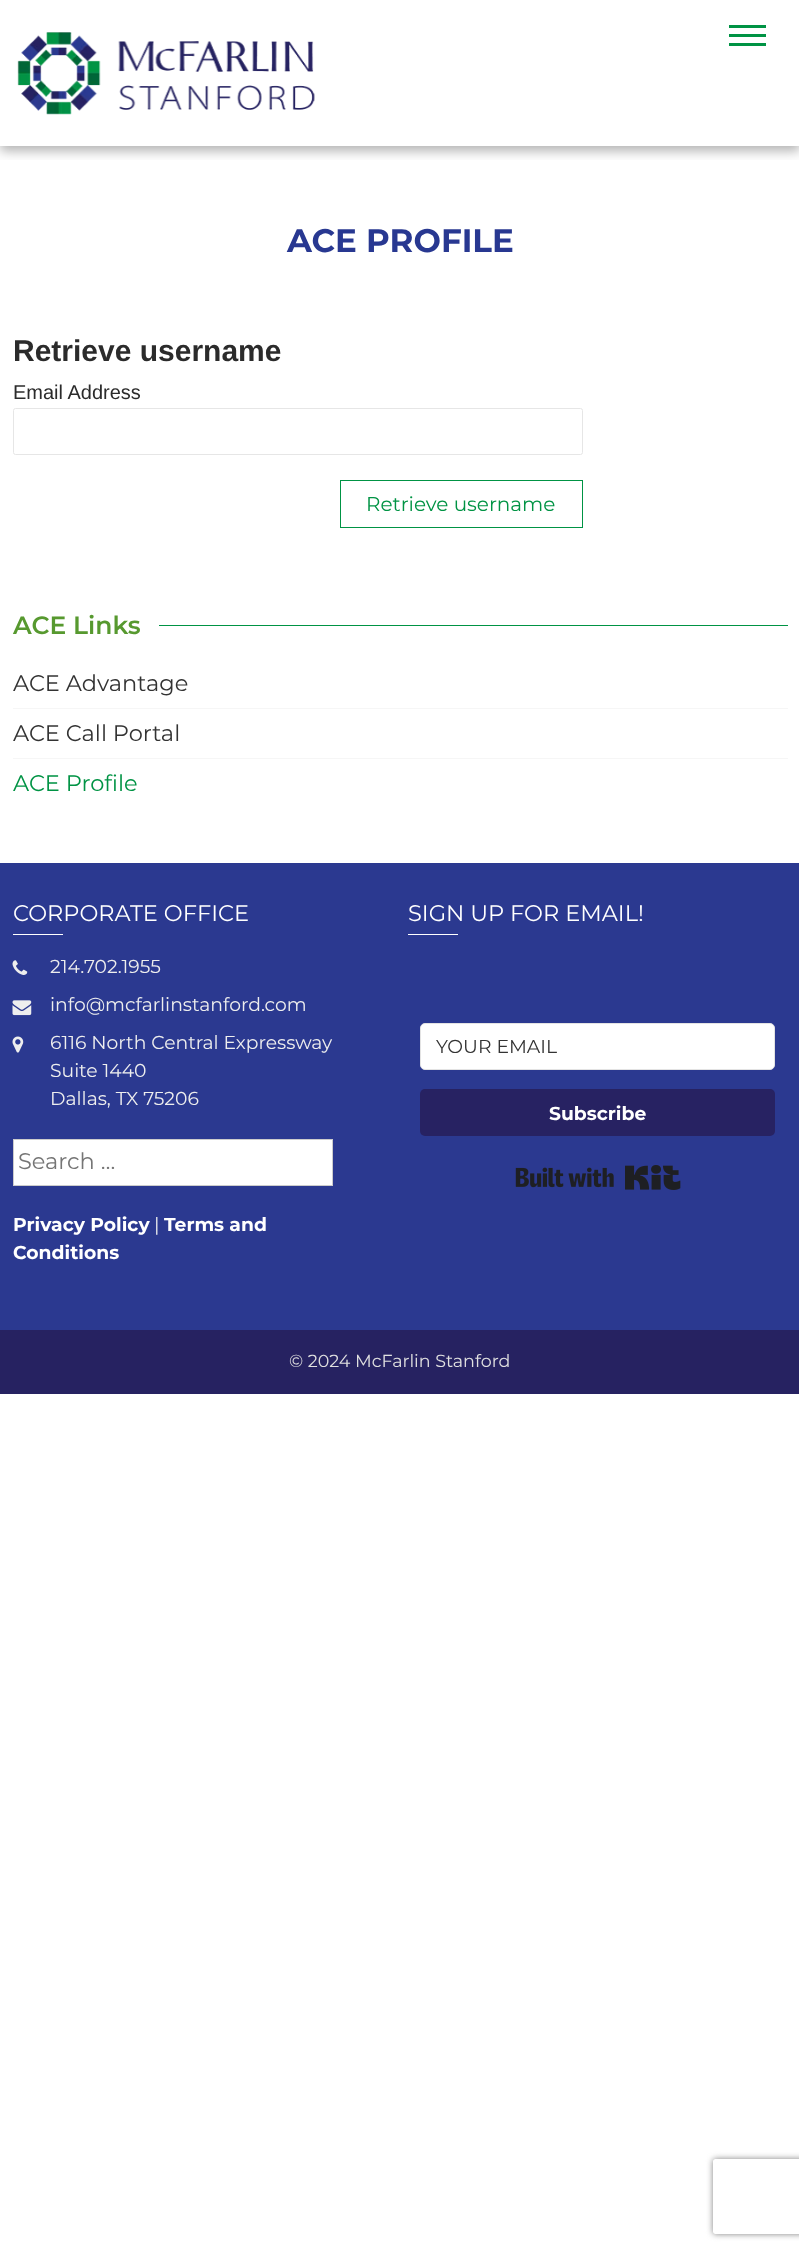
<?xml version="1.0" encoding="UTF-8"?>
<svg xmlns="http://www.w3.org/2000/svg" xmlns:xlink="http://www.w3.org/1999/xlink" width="799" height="2251">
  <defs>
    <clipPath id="clip1"><rect x="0" y="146" width="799" height="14" /></clipPath>
    <clipPath id="clip2"><path d="M 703 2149 h 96 v 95 h -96 z m 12.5 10 h 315 c 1.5 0 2.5 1 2.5 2.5 v 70 c 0 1.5 -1 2.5 -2.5 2.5 h -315 c -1.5 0 -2.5 -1 -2.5 -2.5 v -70 c 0 -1.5 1 -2.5 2.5 -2.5 z" clip-rule="evenodd" /></clipPath>
  </defs>
  <rect width="100%" height="100%" fill="#ffffff" />
  <g clip-path="url(#clip1)">
    <rect y="5" width="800" height="146" fill="#000000" fill-opacity="0.3" filter="blur(6px)" />
  </g>
  <image x="17" y="32" width="298" height="83" xlink:href="image1.png" />
  <rect x="729" y="25" width="37" height="3" fill="#009344" />
  <rect x="729" y="34" width="37" height="3" fill="#009344" />
  <rect x="729" y="43" width="37" height="3" fill="#009344" />
  <rect x="13.5" y="408.5" width="569" height="46" rx="2" fill="none" stroke="#e6e6e6" />
  <rect x="340.5" y="480.5" width="242" height="47" fill="none" stroke="#009344" />
  <rect x="159" y="625" width="629" height="1" fill="#009344" />
  <rect x="13" y="708" width="775" height="1" fill="#f6f6f6" />
  <rect x="13" y="758" width="775" height="1" fill="#f6f6f6" />
  <rect y="863" width="799" height="467" fill="#2b3990" />
  <rect x="13" y="934" width="50" height="1" fill="#ffffff" />
  <image x="12" y="960" width="16" height="15" xlink:href="image2.png" />
  <image x="12" y="1000" width="20" height="16" xlink:href="image3.png" />
  <image x="12" y="1036" width="12" height="17" xlink:href="image4.png" />
  <rect x="13.5" y="1139.5" width="319" height="46" fill="#ffffff" stroke="#cccccc" />
  <rect x="408" y="934" width="50" height="1" fill="#ffffff" />
  <rect x="420.5" y="1023.5" width="354" height="46" rx="4.5" fill="#ffffff" stroke="#e3e3e3" />
  <rect x="420" y="1089" width="355" height="47" rx="5" fill="#272262" />
  <image x="515" y="1165" width="166" height="25" xlink:href="image5.png" />
  <rect y="1330" width="799" height="64" fill="#262261" />
  <g clip-path="url(#clip2)">
    <rect x="713" y="2159" width="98" height="75" rx="2.5" fill="#808080" filter="blur(3px)" />
  </g>
  <text x="287" y="252" style="font-family: Montserrat; font-size: 32.5px; font-weight: bold; fill: #283891">ACE PROFILE</text>
  <text x="13" y="361" style="font-family: Liberation Sans; font-size: 30px; font-weight: bold; fill: #2b2b2b">Retrieve username</text>
  <text x="13" y="399" style="font-family: Liberation Sans; font-size: 20px; fill: #2b2b2b">Email Address</text>
  <text x="366" y="511" style="font-family: Montserrat; font-size: 20px; fill: #009344">Retrieve username</text>
  <text x="13" y="634" style="font-family: Montserrat; font-size: 25px; font-weight: 600; fill: #57992f">ACE Links</text>
  <text x="13" y="691" style="font-family: Montserrat; font-size: 22.5px; fill: #333333">ACE Advantage</text>
  <text x="13" y="741" style="font-family: Montserrat; font-size: 22.5px; fill: #333333">ACE Call Portal</text>
  <text x="13" y="791" style="font-family: Montserrat; font-size: 22.5px; fill: #009344">ACE Profile</text>
  <text x="13" y="921" style="font-family: Montserrat; font-size: 22.5px; fill: #ffffff">CORPORATE OFFICE</text>
  <text x="50" y="973" style="font-family: Montserrat; font-size: 18.75px; fill: #eeeeee">214.702.1955</text>
  <text x="50" y="1011" style="font-family: Montserrat; font-size: 18.75px; fill: #eeeeee">info@mcfarlinstanford.com</text>
  <text x="50" y="1049" style="font-family: Montserrat; font-size: 18.75px; fill: #eeeeee">6116 North Central Expressway</text>
  <text x="50" y="1077" style="font-family: Montserrat; font-size: 18.75px; fill: #eeeeee">Suite 1440</text>
  <text x="50" y="1105" style="font-family: Montserrat; font-size: 18.75px; fill: #eeeeee">Dallas, TX 75206</text>
  <text x="18" y="1169" style="font-family: Montserrat; font-size: 22.5px; fill: #757575">Search …</text>
  <text x="13" y="1231" style="font-family: Montserrat; font-size: 18.75px; font-weight: bold; fill: #ffffff">Privacy Policy</text>
  <text x="154" y="1231" style="font-family: Montserrat; font-size: 18.75px; fill: #eeeeee">|</text>
  <text x="164" y="1231" style="font-family: Montserrat; font-size: 18.75px; font-weight: bold; fill: #ffffff">Terms and</text>
  <text x="13" y="1259" style="font-family: Montserrat; font-size: 18.75px; font-weight: bold; fill: #ffffff">Conditions</text>
  <text x="408" y="921" style="font-family: Montserrat; font-size: 22.5px; fill: #ffffff">SIGN UP FOR EMAIL!</text>
  <text x="436" y="1053" style="font-family: Montserrat; font-size: 18.75px; fill: #333333">YOUR EMAIL</text>
  <text x="549" y="1120" style="font-family: Montserrat; font-size: 18.75px; font-weight: bold; fill: #ffffff">Subscribe</text>
  <text x="289" y="1367" style="font-family: Montserrat; font-size: 17.5px; fill: #e0e0e0">© 2024 McFarlin Stanford</text>
</svg>
